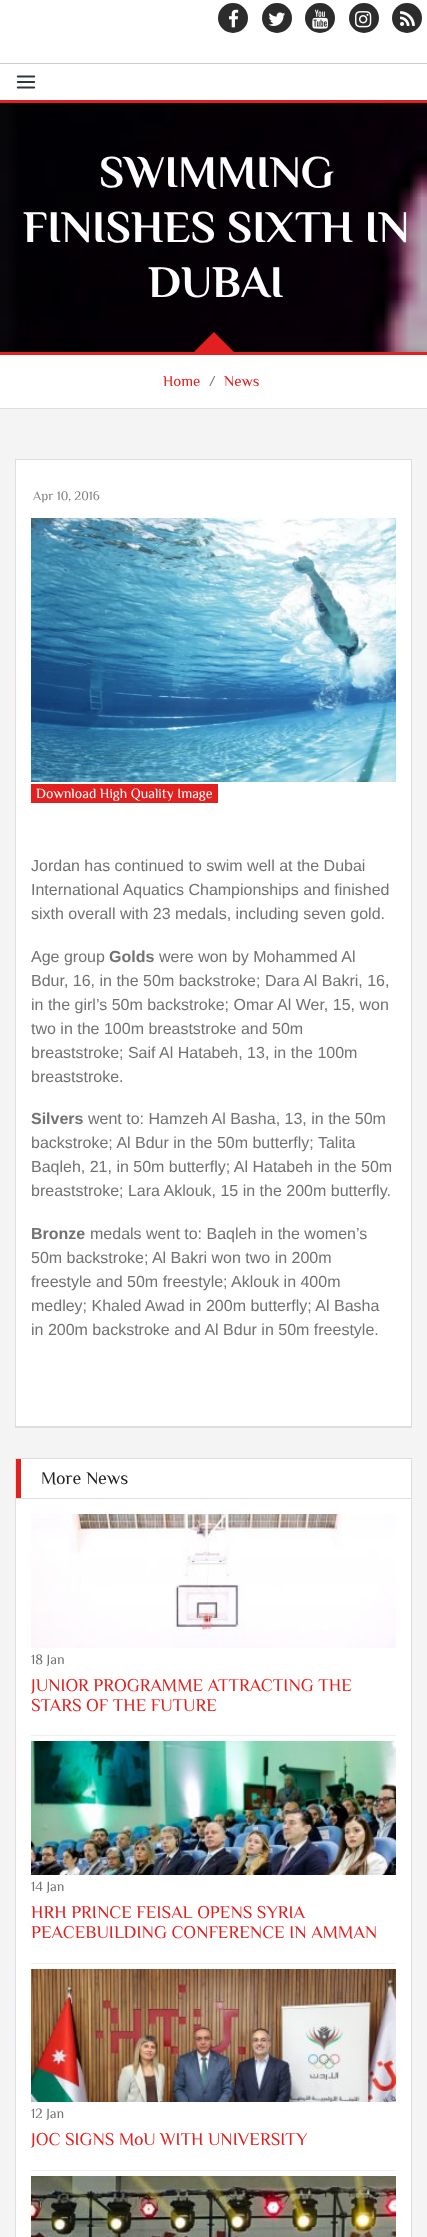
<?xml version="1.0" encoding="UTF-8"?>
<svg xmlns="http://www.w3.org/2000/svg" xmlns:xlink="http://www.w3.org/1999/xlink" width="427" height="2237">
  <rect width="100%" height="100%" fill="#ffffff" />
  <circle cx="233" cy="18" r="15" fill="#2c2c2c" />
  <image x="229" y="9" width="10" height="19" xlink:href="image1.png" />
  <circle cx="277" cy="18" r="15" fill="#2c2c2c" />
  <image x="268" y="12" width="17" height="14" xlink:href="image2.png" />
  <circle cx="320" cy="18" r="15" fill="#2c2c2c" />
  <image x="312" y="9" width="16" height="20" xlink:href="image3.png" />
  <circle cx="364" cy="18" r="15" fill="#2c2c2c" />
  <image x="355" y="11" width="17" height="17" xlink:href="image4.png" />
  <circle cx="407" cy="18" r="15" fill="#2c2c2c" />
  <image x="400" y="11" width="15" height="15" xlink:href="image5.png" />
  <rect y="63" width="427" height="1" fill="#cccccc" />
  <rect y="100" width="427" height="3" fill="#e1201f" />
  <image x="16" y="75" width="20" height="14" xlink:href="image6.png" />
  <image x="0" y="103" width="427" height="249" xlink:href="image7.png" />
  <rect y="353" width="427" height="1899" fill="#000000" fill-opacity="0.3" filter="blur(5px)" />
  <rect y="409" width="427" height="1828" fill="#f4f4f4" />
  <rect y="355" width="427" height="53" fill="#ffffff" />
  <rect y="352" width="427" height="3" fill="#e1201f" />
  <rect y="408" width="427" height="1" fill="#dedede" />
  <path d="M 234 352 h -40 l 20 -20 z" fill="#e1201f" />
  <rect x="16" y="460" width="395" height="966" fill="#ffffff" />
  <rect x="15" y="459" width="397" height="1" fill="#dedede" />
  <rect x="411" y="459" width="1" height="969" fill="#dedede" />
  <rect x="15" y="1426" width="397" height="2" fill="#dedede" />
  <rect x="15" y="459" width="1" height="969" fill="#dedede" />
  <image x="31" y="518" width="365" height="264" xlink:href="image8.png" />
  <rect x="31" y="784" width="187" height="19" fill="#e1201f" />
  <rect x="16" y="1459" width="395" height="778" fill="#ffffff" />
  <rect x="15" y="1458" width="397" height="1" fill="#dedede" />
  <rect x="411" y="1458" width="1" height="779" fill="#dedede" />
  <rect x="15" y="1458" width="1" height="779" fill="#dedede" />
  <rect x="16" y="1498" width="395" height="1" fill="#dddddd" />
  <rect x="16" y="1459" width="5" height="39" fill="#e1201f" />
  <image x="31" y="1514" width="365" height="134" xlink:href="image9.png" />
  <rect x="31" y="1735" width="365" height="1" fill="#eeeeee" />
  <image x="31" y="1741" width="365" height="134" xlink:href="image10.png" />
  <rect x="31" y="1963" width="365" height="1" fill="#eeeeee" />
  <image x="31" y="1969" width="365" height="133" xlink:href="image11.png" />
  <rect x="31" y="2170" width="365" height="1" fill="#eeeeee" />
  <image x="31" y="2176" width="365" height="61" xlink:href="image12.png" />
  <text x="99" y="187" style="font-family: Philosopher; font-size: 45px; font-weight: bold; fill: #ffffff">SWIMMING</text>
  <text x="23" y="242" style="font-family: Philosopher; font-size: 45px; font-weight: bold; fill: #ffffff">FINISHES SIXTH IN</text>
  <text x="148" y="297" style="font-family: Philosopher; font-size: 45px; font-weight: bold; fill: #ffffff">DUBAI</text>
  <text x="163" y="386" style="font-family: Philosopher; font-size: 15px; fill: #e1201f">Home</text>
  <text x="209" y="386" style="font-family: Philosopher; font-size: 15px; fill: #727272">/</text>
  <text x="224" y="386" style="font-family: Philosopher; font-size: 15px; fill: #e1201f">News</text>
  <text x="33" y="500" style="font-family: Philosopher; font-size: 13px; fill: #808080">Apr 10, 2016</text>
  <text x="36" y="798" style="font-family: Philosopher; font-size: 14px; fill: #ffffff">Download High Quality Image</text>
  <text x="31" y="871" style="font-family: Liberation Sans; font-size: 16px; fill: #727272">Jordan has continued to swim well at the Dubai</text>
  <text x="31" y="895" style="font-family: Liberation Sans; font-size: 16px; fill: #727272">International Aquatics Championships and finished</text>
  <text x="31" y="919" style="font-family: Liberation Sans; font-size: 16px; fill: #727272">sixth overall with 23 medals, including seven gold.</text>
  <text x="31" y="962" style="font-family: Liberation Sans; font-size: 16px; fill: #727272">Age group</text>
  <text x="109" y="962" style="font-family: Liberation Sans; font-size: 16px; font-weight: bold; fill: #727272">Golds</text>
  <text x="159" y="962" style="font-family: Liberation Sans; font-size: 16px; fill: #727272">were won by Mohammed Al</text>
  <text x="31" y="986" style="font-family: Liberation Sans; font-size: 16px; fill: #727272">Bdur, 16, in the 50m backstroke; Dara Al Bakri, 16,</text>
  <text x="31" y="1010" style="font-family: Liberation Sans; font-size: 16px; fill: #727272">in the girl’s 50m backstroke; Omar Al Wer, 15, won</text>
  <text x="31" y="1034" style="font-family: Liberation Sans; font-size: 16px; fill: #727272">two in the 100m breaststroke and 50m</text>
  <text x="31" y="1058" style="font-family: Liberation Sans; font-size: 16px; fill: #727272">breaststroke; Saif Al Hatabeh, 13, in the 100m</text>
  <text x="31" y="1082" style="font-family: Liberation Sans; font-size: 16px; fill: #727272">breaststroke.</text>
  <text x="31" y="1124" style="font-family: Liberation Sans; font-size: 16px; font-weight: bold; fill: #727272">Silvers</text>
  <text x="88" y="1124" style="font-family: Liberation Sans; font-size: 16px; fill: #727272">went to: Hamzeh Al Basha, 13, in the 50m</text>
  <text x="31" y="1148" style="font-family: Liberation Sans; font-size: 16px; fill: #727272">backstroke; Al Bdur in the 50m butterfly; Talita</text>
  <text x="31" y="1172" style="font-family: Liberation Sans; font-size: 16px; fill: #727272">Baqleh, 21, in 50m butterfly; Al Hatabeh in the 50m</text>
  <text x="31" y="1196" style="font-family: Liberation Sans; font-size: 16px; fill: #727272">breaststroke; Lara Aklouk, 15 in the 200m butterfly.</text>
  <text x="31" y="1239" style="font-family: Liberation Sans; font-size: 16px; font-weight: bold; fill: #727272">Bronze</text>
  <text x="90" y="1239" style="font-family: Liberation Sans; font-size: 16px; fill: #727272">medals went to: Baqleh in the women’s</text>
  <text x="31" y="1263" style="font-family: Liberation Sans; font-size: 16px; fill: #727272">50m backstroke; Al Bakri won two in 200m</text>
  <text x="31" y="1287" style="font-family: Liberation Sans; font-size: 16px; fill: #727272">freestyle and 50m freestyle; Aklouk in 400m</text>
  <text x="31" y="1311" style="font-family: Liberation Sans; font-size: 16px; fill: #727272">medley; Khaled Awad in 200m butterfly; Al Basha</text>
  <text x="31" y="1335" style="font-family: Liberation Sans; font-size: 16px; fill: #727272">in 200m backstroke and Al Bdur in 50m freestyle.</text>
  <text x="41" y="1484" style="font-family: Philosopher; font-size: 18px; fill: #222222">More News</text>
  <text x="31" y="1664" style="font-family: Philosopher; font-size: 14px; fill: #727272">18 Jan</text>
  <text x="31" y="1691" style="font-family: Philosopher; font-size: 18px; fill: #e1201f">JUNIOR PROGRAMME ATTRACTING THE</text>
  <text x="31" y="1711" style="font-family: Philosopher; font-size: 18px; fill: #e1201f">STARS OF THE FUTURE</text>
  <text x="31" y="1891" style="font-family: Philosopher; font-size: 14px; fill: #727272">14 Jan</text>
  <text x="31" y="1918" style="font-family: Philosopher; font-size: 18px; fill: #e1201f">HRH PRINCE FEISAL OPENS SYRIA</text>
  <text x="31" y="1938" style="font-family: Philosopher; font-size: 18px; fill: #e1201f">PEACEBUILDING CONFERENCE IN AMMAN</text>
  <text x="31" y="2118" style="font-family: Philosopher; font-size: 14px; fill: #727272">12 Jan</text>
  <text x="31" y="2145" style="font-family: Philosopher; font-size: 18px; fill: #e1201f">JOC SIGNS MoU WITH UNIVERSITY</text>
</svg>
